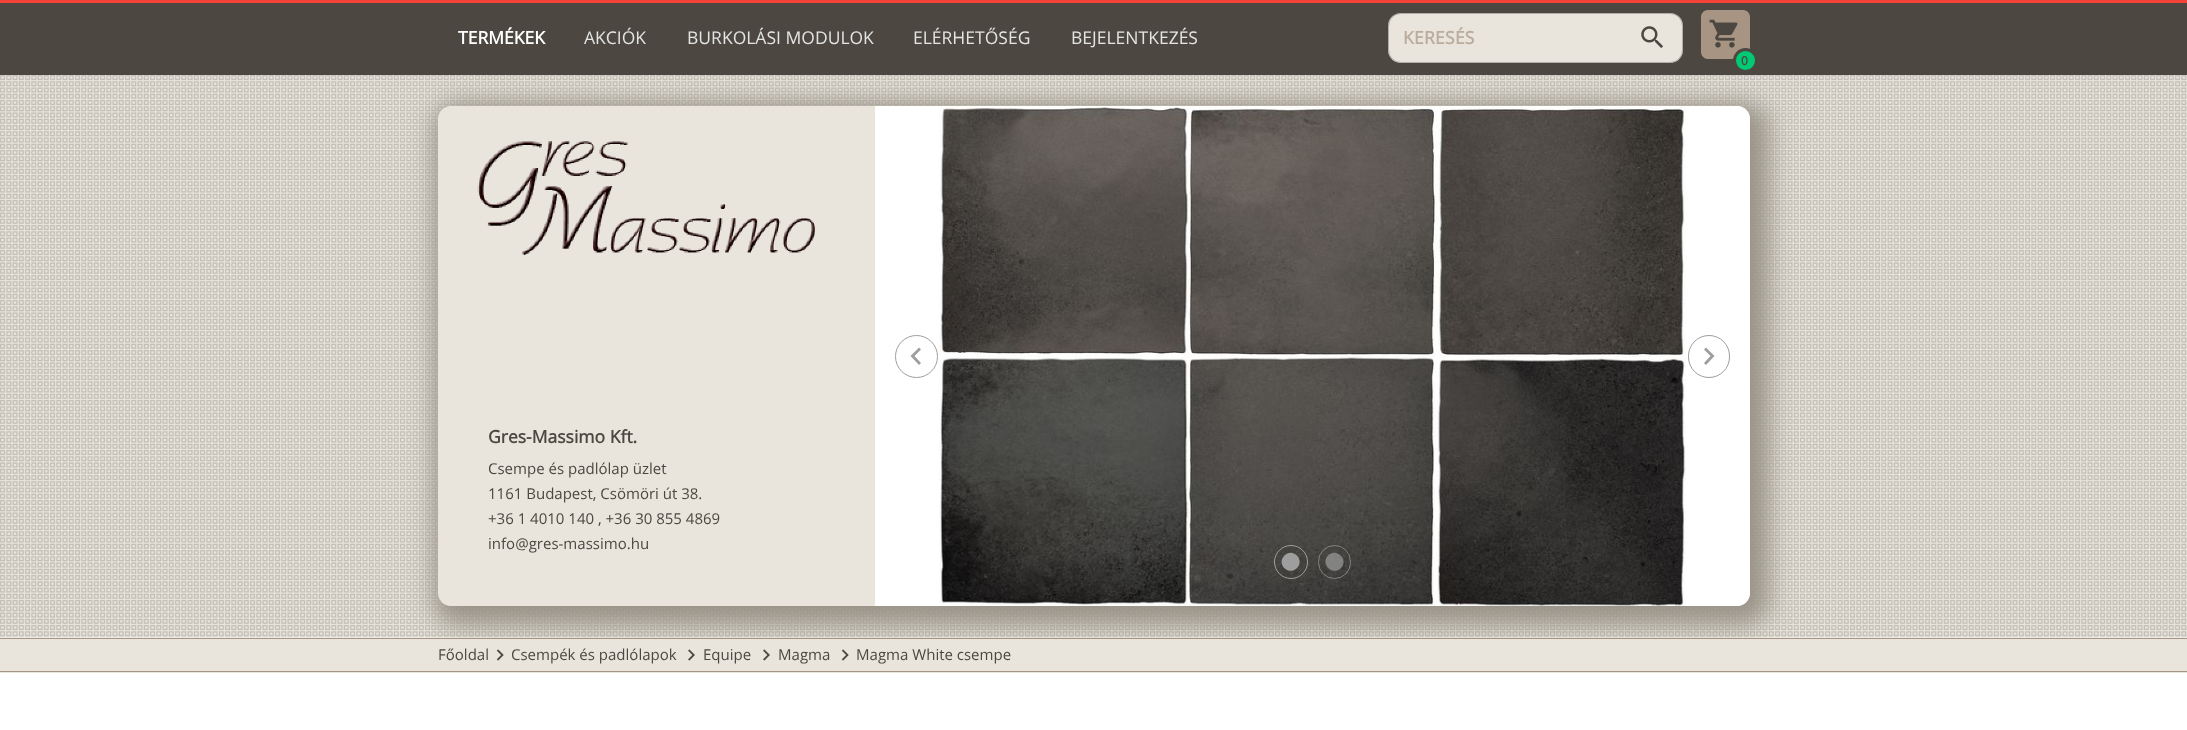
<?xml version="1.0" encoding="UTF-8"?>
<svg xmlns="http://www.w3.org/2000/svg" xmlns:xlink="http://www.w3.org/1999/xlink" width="2187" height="730">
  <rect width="100%" height="100%" fill="#ffffff" />
  <rect width="2187" height="3" fill="#f44336" />
  <image x="0" y="75" width="2187" height="563" xlink:href="image3.png" />
  <rect x="434" y="103" width="1335" height="522" rx="24" fill="#999388" filter="blur(12px)" />
  <rect y="3" width="2187" height="72" fill="#4c4841" />
  <rect x="1388" y="13" width="295" height="50" rx="13" fill="#e9e5dc" />
  <rect x="1388.5" y="13.5" width="294" height="49" rx="12.5" fill="none" stroke="#000000" stroke-opacity="0.24" />
  <image x="1641" y="26" width="22" height="22" xlink:href="image1.png" />
  <image x="1701" y="10" width="49" height="49" xlink:href="image2.png" />
  <circle cx="1745.5" cy="60.5" r="11" fill="#00ca74" stroke="#4c4841" stroke-width="3" />
  <rect x="438" y="106" width="1312" height="500" rx="13" fill="#e9e5dc" />
  <image x="477" y="141" width="338" height="114" xlink:href="image4.png" />
  <path d="M 875 106 h 862 c 7 0 13 6 13 13 v 474 c 0 7 -6 13 -13 13 h -862 z" fill="#ffffff" />
  <circle cx="916.5" cy="356.5" r="21" fill="none" stroke="#9e9e9e" />
  <path d="M 921 349.5 l -6.5 6.5 l 6.5 7 l -2 2 l -8.5 -9 l 8.5 -8.5 z" fill="#9e9e9e" />
  <image x="939" y="106" width="747" height="500" xlink:href="image5.png" />
  <rect x="1688.5" y="335.5" width="41" height="42" rx="20.5" fill="none" stroke="#9e9e9e" />
  <path d="M 1706 347.5 l 8.5 8.5 l -8.5 9 l -2 -2 l 6.5 -7 l -6.5 -6.5 z" fill="#9e9e9e" />
  <circle cx="1291" cy="562" r="16.5" fill="none" stroke="#9e9e9e" />
  <path d="M 1284.5 555.5 c 8 -8.5 21 4.5 12.5 12.5 c -8.5 8.5 -21 -4 -12.5 -12.5 z" fill="#9e9e9e" />
  <rect x="1318.5" y="545.5" width="32" height="33" rx="16" fill="none" stroke="#9e9e9e" stroke-opacity="0.7" />
  <path d="M 1328 555.5 c 8.5 -8.5 21 4.5 13 12.5 c -8.5 8.5 -21 -4 -13 -12.5 z" fill="#9e9e9e" fill-opacity="0.7" />
  <rect y="639" width="2187" height="34" fill="#e9e5dc" />
  <rect y="638" width="2187" height="1" fill="#a79483" />
  <rect y="671" width="2187" height="1" fill="#a79483" />
  <image x="496" y="649" width="8" height="12" xlink:href="image6.png" />
  <image x="688" y="649" width="7" height="12" xlink:href="image7.png" />
  <image x="763" y="649" width="7" height="12" xlink:href="image7.png" />
  <image x="841" y="649" width="8" height="12" xlink:href="image6.png" />
  <text x="458" y="44" style="font-family: Open Sans; font-size: 17.5px; font-weight: bold; fill: #ffffff">TERMÉKEK</text>
  <text x="584" y="44" style="font-family: Open Sans; font-size: 17.5px; fill: #e4e4e3">AKCIÓK</text>
  <text x="687" y="44" style="font-family: Open Sans; font-size: 17.5px; fill: #e4e4e3">BURKOLÁSI MODULOK</text>
  <text x="913" y="44" style="font-family: Open Sans; font-size: 17.5px; fill: #e4e4e3">ELÉRHETŐSÉG</text>
  <text x="1071" y="44" style="font-family: Open Sans; font-size: 17.5px; fill: #e4e4e3">BEJELENTKEZÉS</text>
  <text x="1403" y="44" style="font-family: Open Sans; font-size: 17.5px; font-weight: bold; letter-spacing: 0.25px; fill: #bbac9e">KERESÉS</text>
  <text x="1741" y="65" style="font-family: Open Sans; font-size: 12px; font-weight: bold; fill: #4c4841">0</text>
  <text x="488" y="443" style="font-family: Open Sans; font-size: 17.5px; font-weight: bold; fill: #4c4841">Gres-Massimo Kft.</text>
  <text x="488" y="474" style="font-family: Open Sans; font-size: 15px; fill: #4c4841">Csempe és padlólap üzlet</text>
  <text x="488" y="499" style="font-family: Open Sans; font-size: 15px; fill: #4c4841">1161 Budapest, Csömöri út 38.</text>
  <text x="488" y="524" style="font-family: Open Sans; font-size: 15px; fill: #4c4841">+36 1 4010 140 , +36 30 855 4869</text>
  <text x="488" y="549" style="font-family: Open Sans; font-size: 15px; fill: #4c4841">info@gres-massimo.hu</text>
  <text x="438" y="660" style="font-family: Open Sans; font-size: 15px; fill: #4c4841">Főoldal</text>
  <text x="511" y="660" style="font-family: Open Sans; font-size: 15px; fill: #4c4841">Csempék és padlólapok</text>
  <text x="703" y="660" style="font-family: Open Sans; font-size: 15px; fill: #4c4841">Equipe</text>
  <text x="778" y="660" style="font-family: Open Sans; font-size: 15px; fill: #4c4841">Magma</text>
  <text x="856" y="660" style="font-family: Open Sans; font-size: 15px; fill: #4c4841">Magma White csempe</text>
</svg>
